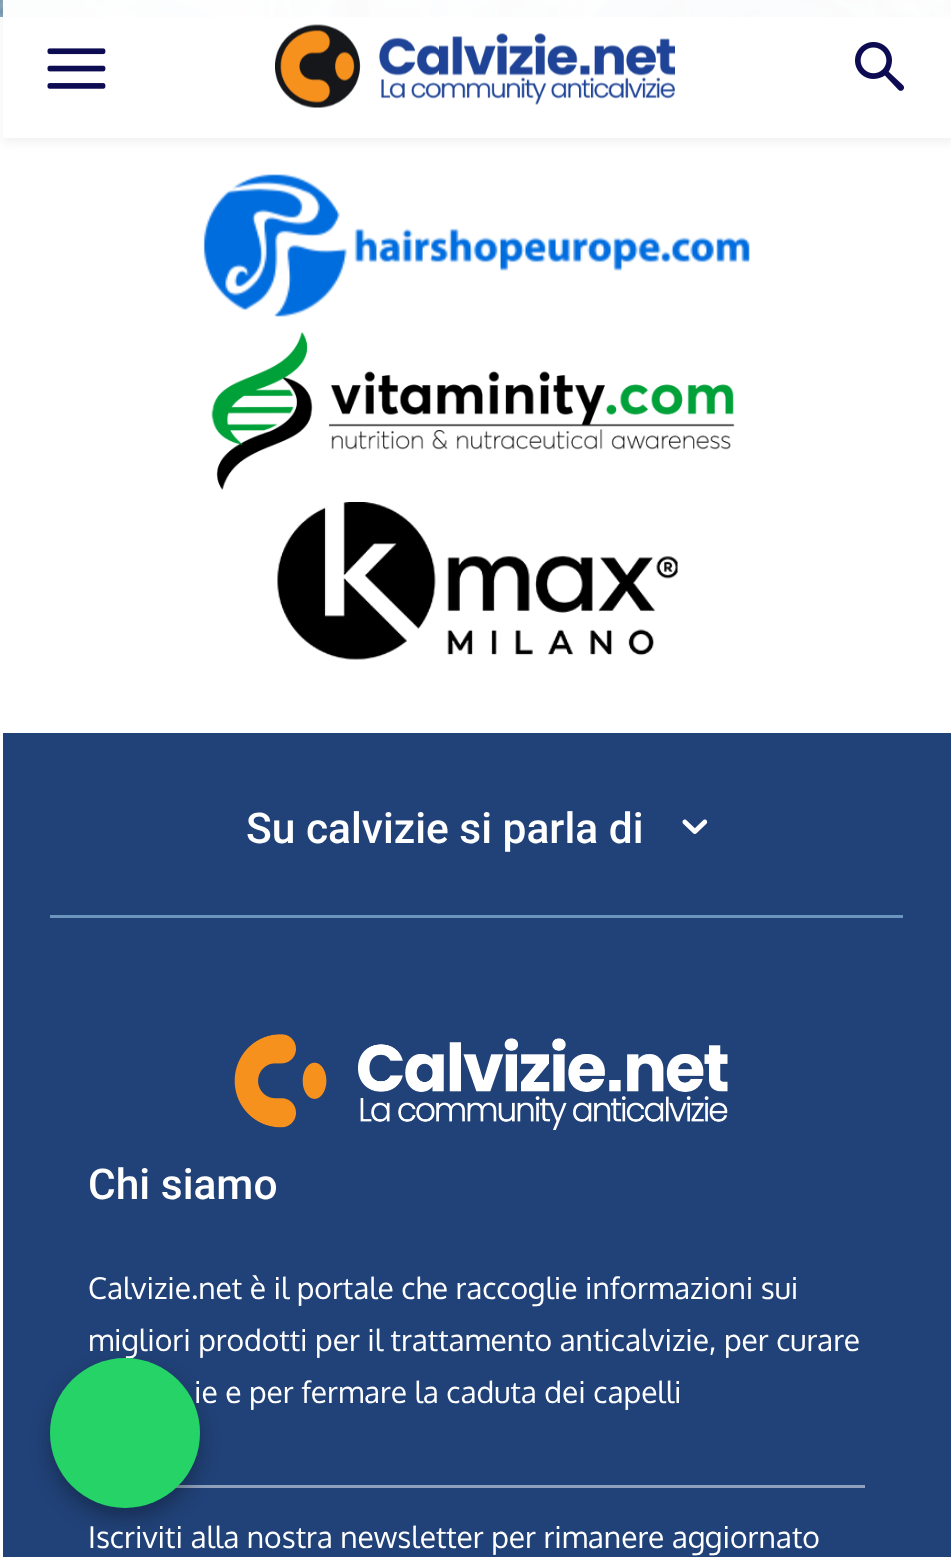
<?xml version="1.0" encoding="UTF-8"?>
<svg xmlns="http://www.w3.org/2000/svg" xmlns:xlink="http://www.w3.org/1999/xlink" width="951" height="1557">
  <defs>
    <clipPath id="clip1"><path d="M 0 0 h 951 v 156 h -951 z m 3 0 h 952 v 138 h -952 z" clip-rule="evenodd" /></clipPath>
  </defs>
  <rect width="100%" height="100%" fill="#ffffff" />
  <image x="47" y="48" width="59" height="41" xlink:href="image1.png" />
  <image x="275" y="24" width="400" height="84" xlink:href="image2.png" />
  <image x="855" y="42" width="49" height="49" xlink:href="image3.png" />
  <image x="0" y="0" width="951" height="17" xlink:href="image4.png" />
  <g clip-path="url(#clip1)">
    <rect x="3" y="5" width="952" height="138" fill="#000000" fill-opacity="0.05" filter="blur(4px)" />
  </g>
  <image x="203" y="174" width="547" height="143" xlink:href="image5.png" />
  <image x="211" y="332" width="524" height="158" xlink:href="image6.png" />
  <image x="277" y="502" width="401" height="158" xlink:href="image7.png" />
  <rect x="3" y="733" width="948" height="824" fill="#214278" />
  <rect x="50" y="915" width="853" height="3" fill="#6d96bf" />
  <image x="682" y="819" width="26" height="15" xlink:href="image8.png" />
  <image x="234" y="1034" width="494" height="96" xlink:href="image9.png" />
  <rect x="176" y="1485" width="689" height="3" fill="#90a1bc" />
  <rect x="50" y="1368" width="150" height="150" rx="75" fill="#000000" fill-opacity="0.3" filter="blur(10px)" />
  <text x="246" y="843" style="font-family: Roboto; font-size: 42.5px; font-weight: 500; fill: #ffffff">Su calvizie si parla di</text>
  <text x="88" y="1199" style="font-family: Roboto; font-size: 42.5px; font-weight: 500; fill: #ffffff">Chi siamo</text>
  <text x="88" y="1299" style="font-family: Oxygen; font-size: 30px; fill: #ffffff">Calvizie.net è il portale che raccoglie informazioni sui</text>
  <text x="88" y="1351" style="font-family: Oxygen; font-size: 30px; fill: #ffffff">migliori prodotti per il trattamento anticalvizie, per curare</text>
  <text x="194" y="1403" style="font-family: Oxygen; font-size: 30px; fill: #ffffff">ie e per fermare la caduta dei capelli</text>
  <text x="88" y="1548" style="font-family: Oxygen; font-size: 30px; fill: #ffffff">Iscriviti alla nostra newsletter per rimanere aggiornato</text>
  <circle cx="125" cy="1433" r="75" fill="#25d366" />
</svg>
